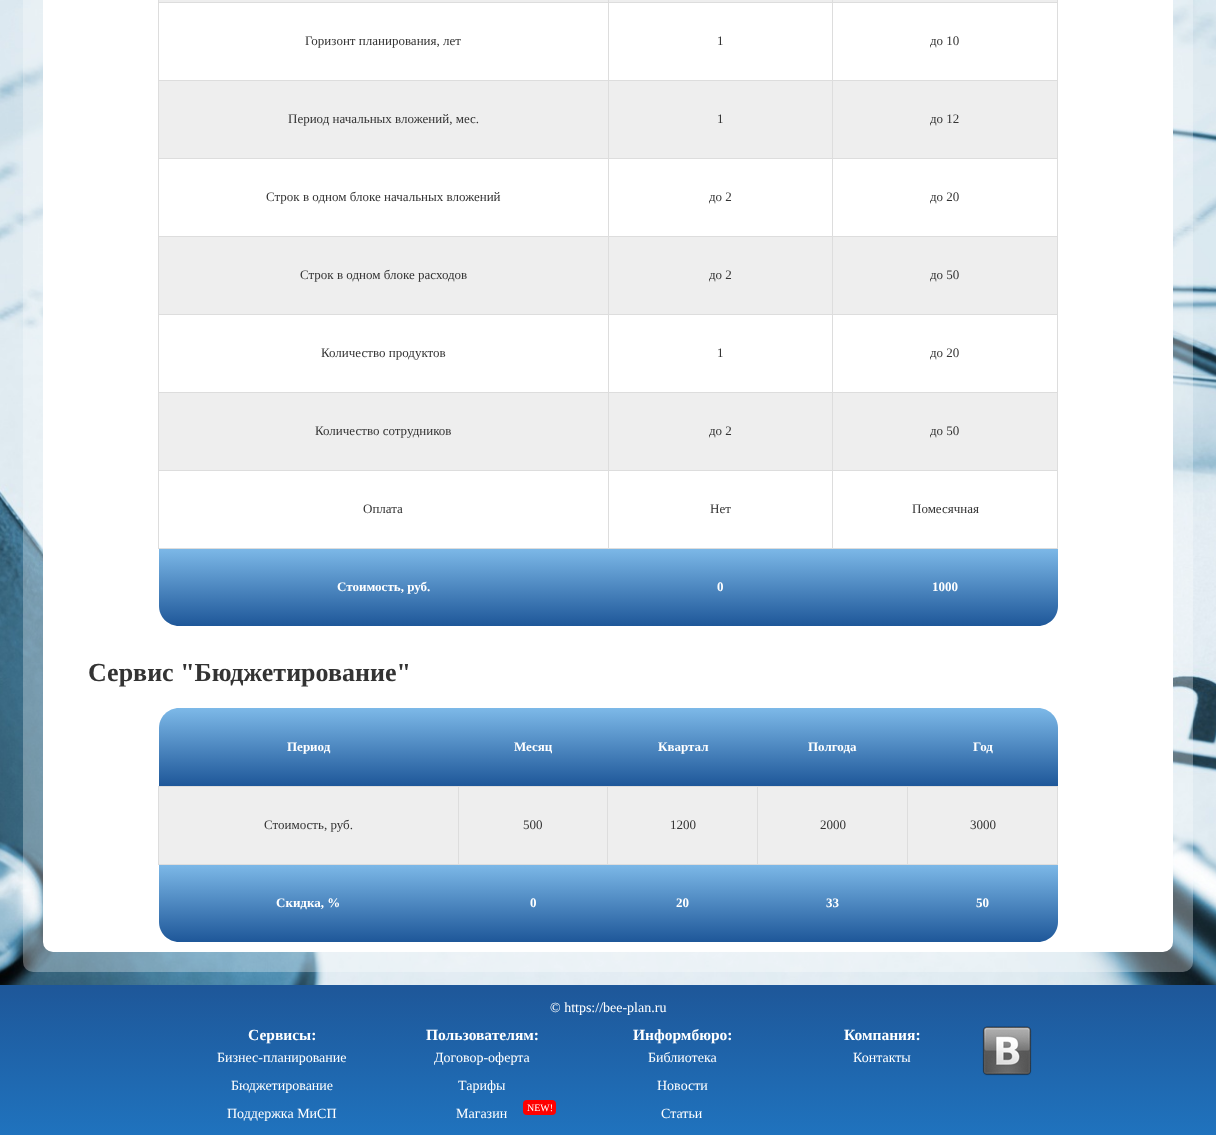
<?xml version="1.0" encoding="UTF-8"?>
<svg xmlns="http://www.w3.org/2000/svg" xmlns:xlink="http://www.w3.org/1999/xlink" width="1216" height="1135">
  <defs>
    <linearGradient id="g1" gradientUnits="userSpaceOnUse" x1="946" y1="548" x2="946" y2="626"><stop offset="0" stop-color="#7db9e8" /><stop offset="1" stop-color="#1e5799" /></linearGradient>
    <linearGradient id="g2" gradientUnits="userSpaceOnUse" x1="384" y1="548" x2="384" y2="626"><stop offset="0" stop-color="#7db9e8" /><stop offset="1" stop-color="#1e5799" /></linearGradient>
    <linearGradient id="g3" gradientUnits="userSpaceOnUse" x1="721" y1="548" x2="721" y2="626"><stop offset="0" stop-color="#7db9e8" /><stop offset="1" stop-color="#1e5799" /></linearGradient>
    <linearGradient id="g4" gradientUnits="userSpaceOnUse" x1="309" y1="708" x2="309" y2="786"><stop offset="0" stop-color="#7db9e8" /><stop offset="1" stop-color="#1e5799" /></linearGradient>
    <linearGradient id="g5" gradientUnits="userSpaceOnUse" x1="533" y1="708" x2="533" y2="786"><stop offset="0" stop-color="#7db9e8" /><stop offset="1" stop-color="#1e5799" /></linearGradient>
    <linearGradient id="g6" gradientUnits="userSpaceOnUse" x1="683" y1="708" x2="683" y2="786"><stop offset="0" stop-color="#7db9e8" /><stop offset="1" stop-color="#1e5799" /></linearGradient>
    <linearGradient id="g7" gradientUnits="userSpaceOnUse" x1="833" y1="708" x2="833" y2="786"><stop offset="0" stop-color="#7db9e8" /><stop offset="1" stop-color="#1e5799" /></linearGradient>
    <linearGradient id="g8" gradientUnits="userSpaceOnUse" x1="983" y1="708" x2="983" y2="786"><stop offset="0" stop-color="#7db9e8" /><stop offset="1" stop-color="#1e5799" /></linearGradient>
    <linearGradient id="g9" gradientUnits="userSpaceOnUse" x1="983" y1="864" x2="983" y2="942"><stop offset="0" stop-color="#7db9e8" /><stop offset="1" stop-color="#1e5799" /></linearGradient>
    <linearGradient id="g10" gradientUnits="userSpaceOnUse" x1="309" y1="864" x2="309" y2="942"><stop offset="0" stop-color="#7db9e8" /><stop offset="1" stop-color="#1e5799" /></linearGradient>
    <linearGradient id="g11" gradientUnits="userSpaceOnUse" x1="533" y1="864" x2="533" y2="942"><stop offset="0" stop-color="#7db9e8" /><stop offset="1" stop-color="#1e5799" /></linearGradient>
    <linearGradient id="g12" gradientUnits="userSpaceOnUse" x1="683" y1="864" x2="683" y2="942"><stop offset="0" stop-color="#7db9e8" /><stop offset="1" stop-color="#1e5799" /></linearGradient>
    <linearGradient id="g13" gradientUnits="userSpaceOnUse" x1="833" y1="864" x2="833" y2="942"><stop offset="0" stop-color="#7db9e8" /><stop offset="1" stop-color="#1e5799" /></linearGradient>
    <linearGradient id="g14" gradientUnits="userSpaceOnUse" x1="608" y1="985" x2="608" y2="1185"><stop offset="0" stop-color="#1e5799" /><stop offset="1" stop-color="#207cca" /></linearGradient>
  </defs>
  <rect width="100%" height="100%" fill="#ffffff" />
  <image x="0" y="0" width="1216" height="985" xlink:href="image1.png" />
  <rect x="23" y="-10" width="1170" height="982" rx="10" fill="#ffffff" fill-opacity="0.3" />
  <rect x="43" y="-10" width="1130" height="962" rx="10" fill="#ffffff" />
  <rect x="159" width="899" height="2" fill="#eeeeee" />
  <rect x="832" y="2" width="226" height="1" fill="#dddddd" />
  <rect x="832" y="80" width="226" height="1" fill="#dddddd" />
  <rect x="832" y="158" width="226" height="1" fill="#dddddd" />
  <rect x="832" y="236" width="226" height="1" fill="#dddddd" />
  <rect x="832" y="314" width="226" height="1" fill="#dddddd" />
  <rect x="832" y="392" width="226" height="1" fill="#dddddd" />
  <rect x="832" y="470" width="226" height="1" fill="#dddddd" />
  <path d="M 833 548 h 225 v 58 c 0 11 -9 20 -20 20 h -205 z" fill="url(#g1)" />
  <rect x="1057" y="470" width="1" height="79" fill="#dddddd" />
  <rect x="832" y="548" width="226" height="1" fill="#dddddd" />
  <rect x="832" y="470" width="1" height="79" fill="#dddddd" />
  <rect x="608" y="470" width="225" height="1" fill="#dddddd" />
  <rect x="832" y="392" width="1" height="79" fill="#dddddd" />
  <rect x="608" y="392" width="225" height="1" fill="#dddddd" />
  <rect x="832" y="314" width="1" height="79" fill="#dddddd" />
  <rect x="608" y="314" width="225" height="1" fill="#dddddd" />
  <rect x="832" y="236" width="1" height="79" fill="#dddddd" />
  <rect x="608" y="236" width="225" height="1" fill="#dddddd" />
  <rect x="832" y="158" width="1" height="79" fill="#dddddd" />
  <rect x="608" y="158" width="225" height="1" fill="#dddddd" />
  <rect x="832" y="80" width="1" height="79" fill="#dddddd" />
  <rect x="608" y="80" width="225" height="1" fill="#dddddd" />
  <rect x="832" y="2" width="1" height="79" fill="#dddddd" />
  <rect x="608" y="2" width="225" height="1" fill="#dddddd" />
  <rect x="608" y="548" width="225" height="1" fill="#dddddd" />
  <rect x="608" y="470" width="1" height="79" fill="#dddddd" />
  <rect x="158" y="470" width="451" height="1" fill="#dddddd" />
  <rect x="608" y="392" width="1" height="79" fill="#dddddd" />
  <rect x="158" y="392" width="451" height="1" fill="#dddddd" />
  <rect x="608" y="314" width="1" height="79" fill="#dddddd" />
  <rect x="158" y="314" width="451" height="1" fill="#dddddd" />
  <rect x="608" y="236" width="1" height="79" fill="#dddddd" />
  <rect x="158" y="236" width="451" height="1" fill="#dddddd" />
  <rect x="608" y="158" width="1" height="79" fill="#dddddd" />
  <rect x="158" y="158" width="451" height="1" fill="#dddddd" />
  <rect x="608" y="80" width="1" height="79" fill="#dddddd" />
  <rect x="158" y="80" width="451" height="1" fill="#dddddd" />
  <rect x="608" y="2" width="1" height="79" fill="#dddddd" />
  <rect x="158" y="2" width="451" height="1" fill="#dddddd" />
  <rect x="608" width="1" height="3" fill="#dddddd" />
  <rect x="832" width="1" height="3" fill="#dddddd" />
  <path d="M 159 548 h 449 v 78 h -429 c -11 0 -20 -9 -20 -20 z" fill="url(#g2)" />
  <rect x="158" y="548" width="451" height="1" fill="#dddddd" />
  <rect x="158" y="470" width="1" height="79" fill="#dddddd" />
  <rect x="158" y="392" width="1" height="79" fill="#dddddd" />
  <rect x="158" y="314" width="1" height="79" fill="#dddddd" />
  <rect x="158" y="236" width="1" height="79" fill="#dddddd" />
  <rect x="158" y="158" width="1" height="79" fill="#dddddd" />
  <rect x="158" y="80" width="1" height="79" fill="#dddddd" />
  <rect x="158" width="1" height="81" fill="#dddddd" />
  <rect x="1057" y="392" width="1" height="79" fill="#dddddd" />
  <rect x="1057" y="314" width="1" height="79" fill="#dddddd" />
  <rect x="1057" y="236" width="1" height="79" fill="#dddddd" />
  <rect x="1057" y="158" width="1" height="79" fill="#dddddd" />
  <rect x="1057" y="80" width="1" height="79" fill="#dddddd" />
  <rect x="1057" width="1" height="81" fill="#dddddd" />
  <rect x="159" y="81" width="449" height="77" fill="#eeeeee" />
  <rect x="609" y="81" width="223" height="77" fill="#eeeeee" />
  <rect x="833" y="81" width="224" height="77" fill="#eeeeee" />
  <rect x="159" y="237" width="449" height="77" fill="#eeeeee" />
  <rect x="609" y="237" width="223" height="77" fill="#eeeeee" />
  <rect x="833" y="237" width="224" height="77" fill="#eeeeee" />
  <rect x="159" y="393" width="449" height="77" fill="#eeeeee" />
  <rect x="609" y="393" width="223" height="77" fill="#eeeeee" />
  <rect x="833" y="393" width="224" height="77" fill="#eeeeee" />
  <rect x="608" y="549" width="225" height="77" fill="url(#g3)" />
  <path d="M 179 708 h 279 v 78 h -299 v -58 c 0 -11 9 -20 20 -20 z" fill="url(#g4)" />
  <rect x="458" y="708" width="150" height="78" fill="url(#g5)" />
  <rect x="608" y="708" width="150" height="78" fill="url(#g6)" />
  <rect x="758" y="708" width="150" height="78" fill="url(#g7)" />
  <path d="M 908 708 h 130 c 11 0 20 9 20 20 v 58 h -150 z" fill="url(#g8)" />
  <rect x="159" y="787" width="299" height="77" fill="#eeeeee" />
  <rect x="907" y="786" width="151" height="1" fill="#dddddd" />
  <path d="M 908 864 h 150 v 58 c 0 11 -9 20 -20 20 h -130 z" fill="url(#g9)" />
  <rect x="1057" y="786" width="1" height="79" fill="#dddddd" />
  <rect x="907" y="864" width="151" height="1" fill="#dddddd" />
  <rect x="907" y="786" width="1" height="79" fill="#dddddd" />
  <rect x="757" y="786" width="151" height="1" fill="#dddddd" />
  <rect x="757" y="864" width="151" height="1" fill="#dddddd" />
  <rect x="757" y="786" width="1" height="79" fill="#dddddd" />
  <rect x="607" y="786" width="151" height="1" fill="#dddddd" />
  <rect x="607" y="864" width="151" height="1" fill="#dddddd" />
  <rect x="607" y="786" width="1" height="79" fill="#dddddd" />
  <rect x="458" y="786" width="150" height="1" fill="#dddddd" />
  <rect x="458" y="864" width="150" height="1" fill="#dddddd" />
  <rect x="458" y="786" width="1" height="79" fill="#dddddd" />
  <rect x="158" y="786" width="301" height="1" fill="#dddddd" />
  <path d="M 159 864 h 299 v 78 h -279 c -11 0 -20 -9 -20 -20 z" fill="url(#g10)" />
  <rect x="158" y="864" width="301" height="1" fill="#dddddd" />
  <rect x="158" y="786" width="1" height="79" fill="#dddddd" />
  <rect x="459" y="787" width="148" height="77" fill="#eeeeee" />
  <rect x="608" y="787" width="149" height="77" fill="#eeeeee" />
  <rect x="758" y="787" width="149" height="77" fill="#eeeeee" />
  <rect x="908" y="787" width="149" height="77" fill="#eeeeee" />
  <rect x="458" y="865" width="150" height="77" fill="url(#g11)" />
  <rect x="608" y="865" width="150" height="77" fill="url(#g12)" />
  <rect x="758" y="865" width="150" height="77" fill="url(#g13)" />
  <rect y="985" width="1216" height="150" fill="url(#g14)" />
  <rect x="523" y="1100" width="33" height="15" rx="4" fill="#ff0000" />
  <image x="982" y="1026" width="50" height="50" xlink:href="image2.png" />
  <text x="305" y="45" style="font-family: Liberation Serif; font-size: 13px; fill: #333333">Горизонт планирования, лет</text>
  <text x="717" y="45" style="font-family: Liberation Serif; font-size: 13px; fill: #333333">1</text>
  <text x="930" y="45" style="font-family: Liberation Serif; font-size: 13px; fill: #333333">до 10</text>
  <text x="288" y="123" style="font-family: Liberation Serif; font-size: 13px; fill: #333333">Период начальных вложений, мес.</text>
  <text x="717" y="123" style="font-family: Liberation Serif; font-size: 13px; fill: #333333">1</text>
  <text x="930" y="123" style="font-family: Liberation Serif; font-size: 13px; fill: #333333">до 12</text>
  <text x="266" y="201" style="font-family: Liberation Serif; font-size: 13px; fill: #333333">Строк в одном блоке начальных вложений</text>
  <text x="709" y="201" style="font-family: Liberation Serif; font-size: 13px; fill: #333333">до 2</text>
  <text x="930" y="201" style="font-family: Liberation Serif; font-size: 13px; fill: #333333">до 20</text>
  <text x="300" y="279" style="font-family: Liberation Serif; font-size: 13px; fill: #333333">Строк в одном блоке расходов</text>
  <text x="709" y="279" style="font-family: Liberation Serif; font-size: 13px; fill: #333333">до 2</text>
  <text x="930" y="279" style="font-family: Liberation Serif; font-size: 13px; fill: #333333">до 50</text>
  <text x="321" y="357" style="font-family: Liberation Serif; font-size: 13px; fill: #333333">Количество продуктов</text>
  <text x="717" y="357" style="font-family: Liberation Serif; font-size: 13px; fill: #333333">1</text>
  <text x="930" y="357" style="font-family: Liberation Serif; font-size: 13px; fill: #333333">до 20</text>
  <text x="315" y="435" style="font-family: Liberation Serif; font-size: 13px; fill: #333333">Количество сотрудников</text>
  <text x="709" y="435" style="font-family: Liberation Serif; font-size: 13px; fill: #333333">до 2</text>
  <text x="930" y="435" style="font-family: Liberation Serif; font-size: 13px; fill: #333333">до 50</text>
  <text x="363" y="513" style="font-family: Liberation Serif; font-size: 13px; fill: #333333">Оплата</text>
  <text x="710" y="513" style="font-family: Liberation Serif; font-size: 13px; fill: #333333">Нет</text>
  <text x="912" y="513" style="font-family: Liberation Serif; font-size: 13px; fill: #333333">Помесячная</text>
  <text x="337" y="591" style="font-family: Liberation Serif; font-size: 13px; font-weight: bold; fill: #ffffff">Стоимость, руб.</text>
  <text x="717" y="591" style="font-family: Liberation Serif; font-size: 13px; font-weight: bold; fill: #ffffff">0</text>
  <text x="932" y="591" style="font-family: Liberation Serif; font-size: 13px; font-weight: bold; fill: #ffffff">1000</text>
  <text x="88" y="681" style="font-family: Liberation Serif; font-size: 26px; font-weight: bold; fill: #333333">Сервис "Бюджетирование"</text>
  <text x="287" y="751" style="font-family: Liberation Serif; font-size: 13px; font-weight: bold; fill: #ffffff">Период</text>
  <text x="514" y="751" style="font-family: Liberation Serif; font-size: 13px; font-weight: bold; fill: #ffffff">Месяц</text>
  <text x="658" y="751" style="font-family: Liberation Serif; font-size: 13px; font-weight: bold; fill: #ffffff">Квартал</text>
  <text x="808" y="751" style="font-family: Liberation Serif; font-size: 13px; font-weight: bold; fill: #ffffff">Полгода</text>
  <text x="973" y="751" style="font-family: Liberation Serif; font-size: 13px; font-weight: bold; fill: #ffffff">Год</text>
  <text x="264" y="829" style="font-family: Liberation Serif; font-size: 13px; fill: #333333">Стоимость, руб.</text>
  <text x="523" y="829" style="font-family: Liberation Serif; font-size: 13px; fill: #333333">500</text>
  <text x="670" y="829" style="font-family: Liberation Serif; font-size: 13px; fill: #333333">1200</text>
  <text x="820" y="829" style="font-family: Liberation Serif; font-size: 13px; fill: #333333">2000</text>
  <text x="970" y="829" style="font-family: Liberation Serif; font-size: 13px; fill: #333333">3000</text>
  <text x="276" y="907" style="font-family: Liberation Serif; font-size: 13px; font-weight: bold; fill: #ffffff">Скидка, %</text>
  <text x="530" y="907" style="font-family: Liberation Serif; font-size: 13px; font-weight: bold; fill: #ffffff">0</text>
  <text x="676" y="907" style="font-family: Liberation Serif; font-size: 13px; font-weight: bold; fill: #ffffff">20</text>
  <text x="826" y="907" style="font-family: Liberation Serif; font-size: 13px; font-weight: bold; fill: #ffffff">33</text>
  <text x="976" y="907" style="font-family: Liberation Serif; font-size: 13px; font-weight: bold; fill: #ffffff">50</text>
  <text x="550" y="1012" style="font-family: Liberation Serif; font-size: 14px; fill: #ffffff">© https://bee-plan.ru</text>
  <text x="248" y="1040" style="font-family: Liberation Serif; font-size: 15.5px; font-weight: bold; fill: #ffffff">Сервисы:</text>
  <text x="217" y="1062" style="font-family: Liberation Serif; font-size: 14px; fill: #ffffff">Бизнес-планирование</text>
  <text x="231" y="1090" style="font-family: Liberation Serif; font-size: 14px; fill: #ffffff">Бюджетирование</text>
  <text x="227" y="1118" style="font-family: Liberation Serif; font-size: 14px; fill: #ffffff">Поддержка МиСП</text>
  <text x="426" y="1040" style="font-family: Liberation Serif; font-size: 15.5px; font-weight: bold; fill: #ffffff">Пользователям:</text>
  <text x="434" y="1062" style="font-family: Liberation Serif; font-size: 14px; fill: #ffffff">Договор-оферта</text>
  <text x="458" y="1090" style="font-family: Liberation Serif; font-size: 14px; fill: #ffffff">Тарифы</text>
  <text x="456" y="1118" style="font-family: Liberation Serif; font-size: 14px; fill: #ffffff">Магазин</text>
  <text x="527" y="1111" style="font-family: Liberation Serif; font-size: 10px; fill: #ffffff">NEW!</text>
  <text x="633" y="1040" style="font-family: Liberation Serif; font-size: 15.5px; font-weight: bold; fill: #ffffff">Информбюро:</text>
  <text x="648" y="1062" style="font-family: Liberation Serif; font-size: 14px; fill: #ffffff">Библиотека</text>
  <text x="657" y="1090" style="font-family: Liberation Serif; font-size: 14px; fill: #ffffff">Новости</text>
  <text x="661" y="1118" style="font-family: Liberation Serif; font-size: 14px; fill: #ffffff">Статьи</text>
  <text x="844" y="1040" style="font-family: Liberation Serif; font-size: 15.5px; font-weight: bold; fill: #ffffff">Компания:</text>
  <text x="853" y="1062" style="font-family: Liberation Serif; font-size: 14px; fill: #ffffff">Контакты</text>
</svg>
